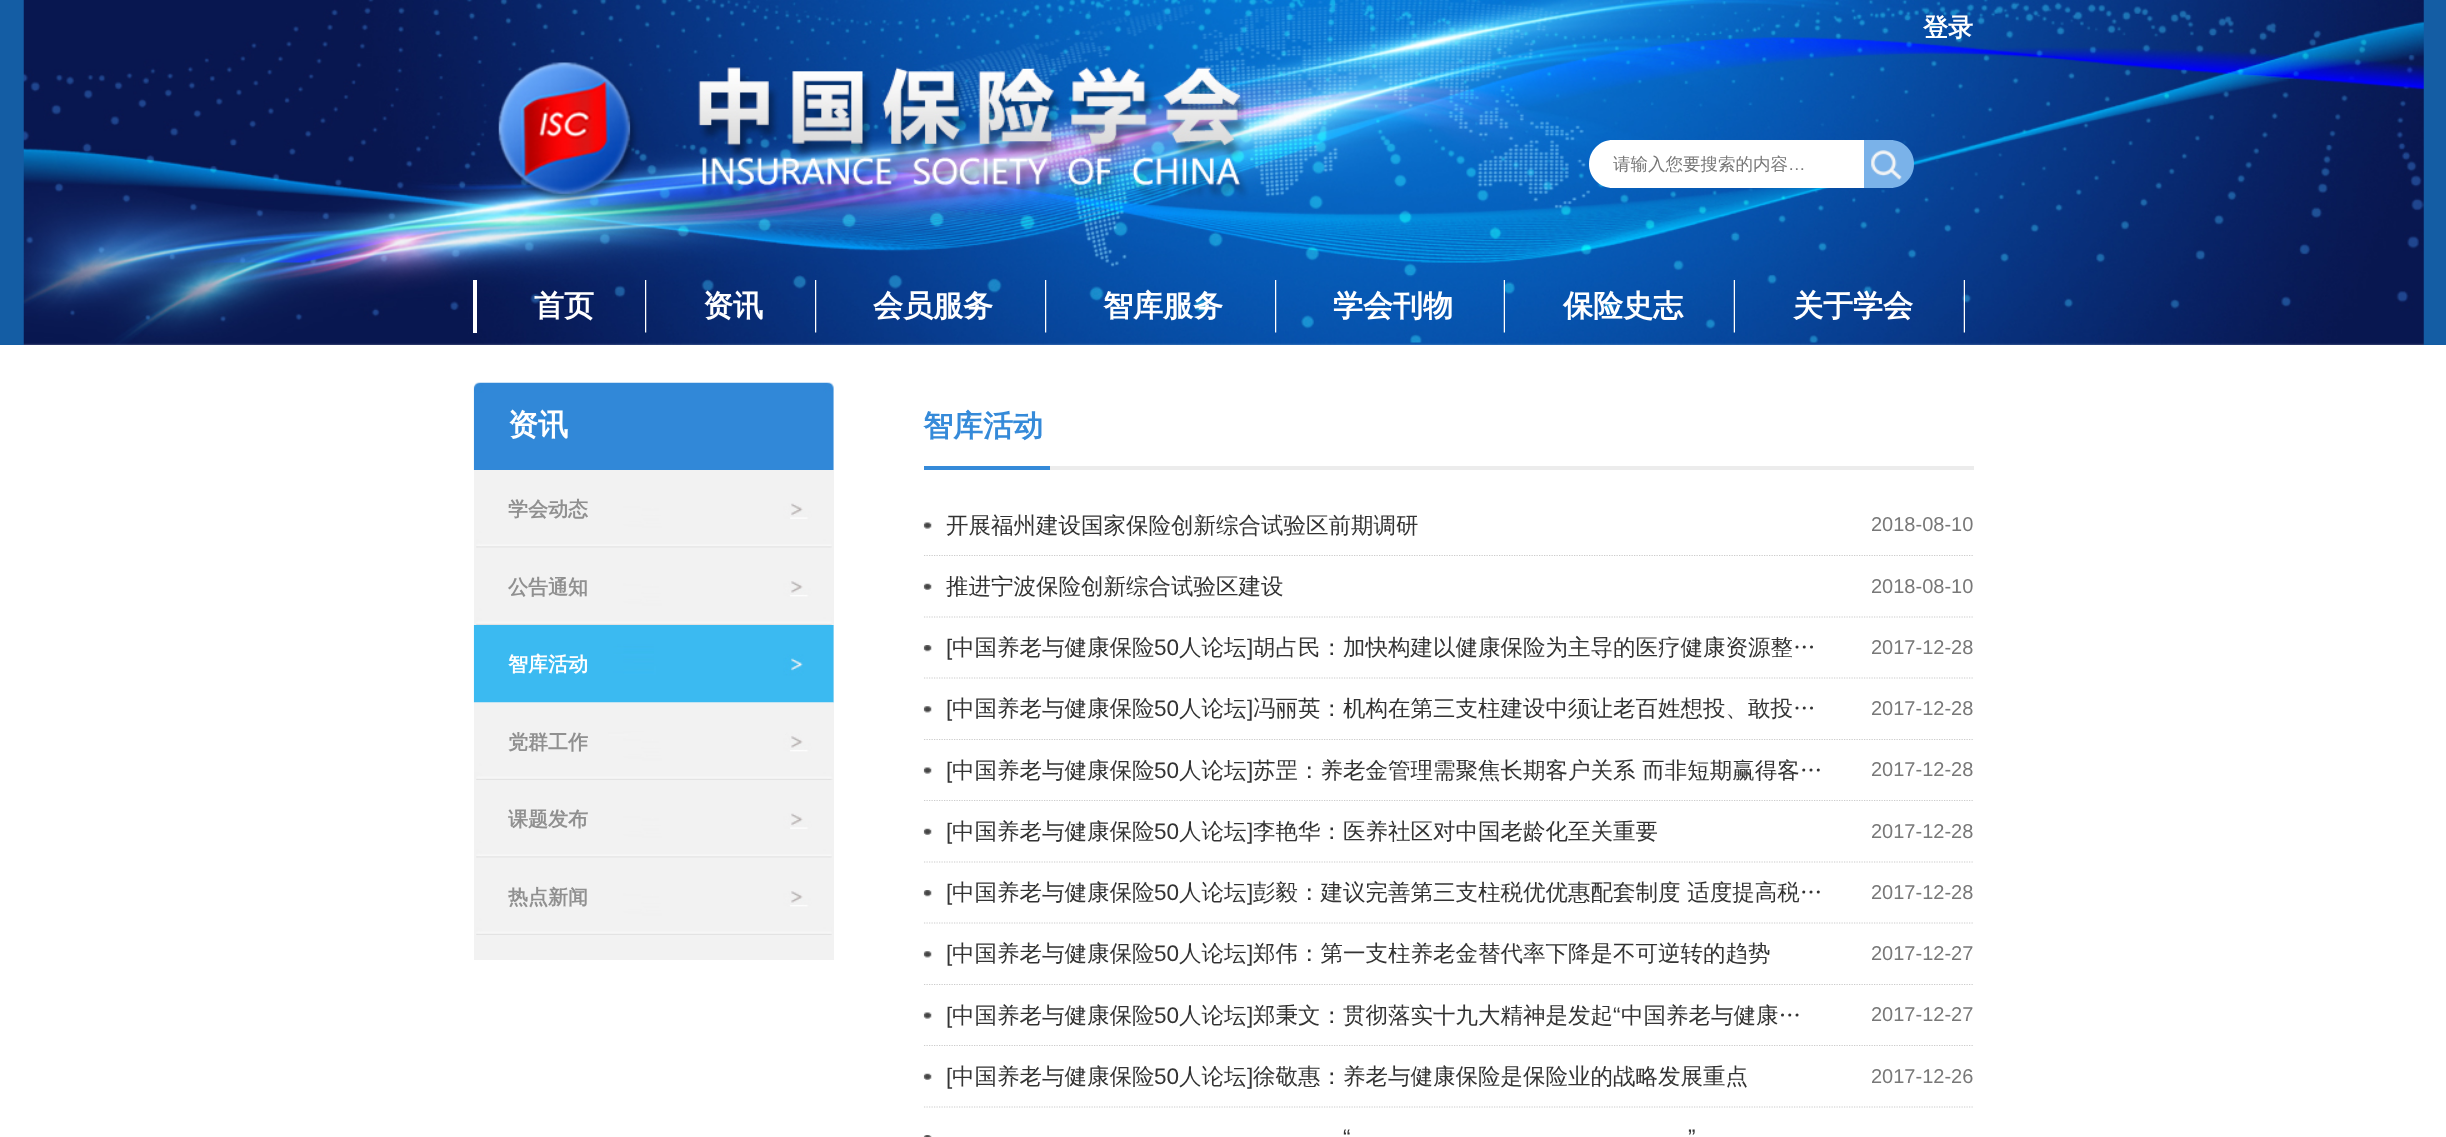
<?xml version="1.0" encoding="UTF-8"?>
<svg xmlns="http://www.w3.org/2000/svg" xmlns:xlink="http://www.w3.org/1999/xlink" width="2446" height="1137">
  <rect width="100%" height="100%" fill="#ffffff" />
  <rect width="2446" height="345" fill="#145da4" />
  <image x="23" y="0" width="2401" height="345" xlink:href="image1.png" />
  <path d="M 1613 140 h 251 v 48 h -251 c -13.5 0 -24 -10.5 -24 -24 c 0 -13.5 10.5 -24 24 -24 z" fill="#ffffff" />
  <path d="M 1864 140 h 26 c 13.5 0 24 10.5 24 24 c 0 13.5 -10.5 24 -24 24 h -26 z" fill="#7ab2e9" />
  <image x="1871" y="150" width="31" height="30" xlink:href="image2.png" />
  <rect x="473" y="280" width="4" height="53" fill="#ffffff" />
  <image x="645" y="280" width="2" height="53" xlink:href="image3.png" />
  <image x="815" y="280" width="2" height="53" xlink:href="image4.png" />
  <image x="1045" y="280" width="2" height="53" xlink:href="image5.png" />
  <image x="1275" y="280" width="2" height="53" xlink:href="image6.png" />
  <image x="1503" y="280" width="2" height="53" xlink:href="image7.png" />
  <image x="1733" y="280" width="2" height="53" xlink:href="image8.png" />
  <image x="1963" y="280" width="2" height="53" xlink:href="image9.png" />
  <image x="473" y="382" width="361" height="88" xlink:href="image10.png" />
  <rect x="474" y="470" width="360" height="490" fill="#f2f2f2" />
  <image x="476" y="503" width="356" height="45" xlink:href="image11.png" />
  <image x="476" y="581" width="356" height="44" xlink:href="image12.png" />
  <image x="473" y="625" width="361" height="78" xlink:href="image13.png" />
  <image x="474" y="702" width="360" height="78" xlink:href="image14.png" />
  <image x="476" y="813" width="356" height="45" xlink:href="image11.png" />
  <image x="476" y="891" width="356" height="44" xlink:href="image12.png" />
  <rect x="1050" y="466" width="924" height="4" fill="#ececec" />
  <rect x="924" y="466" width="126" height="4" fill="#358ad9" />
  <image x="923" y="522" width="9" height="7" xlink:href="image15.png" />
  <path d="M 924 555.5 h 1050" fill="none" stroke="#cccccc" stroke-width="1.2" stroke-dasharray="1.25 1.25" />
  <image x="923" y="583" width="9" height="7" xlink:href="image16.png" />
  <path d="M 924 617 h 1050" fill="none" stroke="#cccccc" stroke-width="1.2" stroke-dasharray="1.25 1.25" />
  <image x="923" y="645" width="9" height="7" xlink:href="image17.png" />
  <path d="M 924 678 h 1050" fill="none" stroke="#cccccc" stroke-width="1.2" stroke-dasharray="1.25 1.25" />
  <image x="923" y="706" width="9" height="7" xlink:href="image18.png" />
  <path d="M 924 739.5 h 1050" fill="none" stroke="#cccccc" stroke-width="1.2" stroke-dasharray="1.25 1.25" />
  <image x="923" y="767" width="9" height="7" xlink:href="image15.png" />
  <path d="M 924 800.5 h 1050" fill="none" stroke="#cccccc" stroke-width="1.2" stroke-dasharray="1.25 1.25" />
  <image x="923" y="828" width="9" height="7" xlink:href="image16.png" />
  <path d="M 924 862 h 1050" fill="none" stroke="#cccccc" stroke-width="1.2" stroke-dasharray="1.25 1.25" />
  <image x="923" y="890" width="9" height="7" xlink:href="image17.png" />
  <path d="M 924 923 h 1050" fill="none" stroke="#cccccc" stroke-width="1.2" stroke-dasharray="1.25 1.25" />
  <image x="923" y="951" width="9" height="7" xlink:href="image18.png" />
  <path d="M 924 984.5 h 1050" fill="none" stroke="#cccccc" stroke-width="1.2" stroke-dasharray="1.25 1.25" />
  <image x="923" y="1012" width="9" height="7" xlink:href="image15.png" />
  <path d="M 924 1045.5 h 1050" fill="none" stroke="#cccccc" stroke-width="1.2" stroke-dasharray="1.25 1.25" />
  <image x="923" y="1073" width="9" height="7" xlink:href="image16.png" />
  <path d="M 924 1107 h 1050" fill="none" stroke="#cccccc" stroke-width="1.2" stroke-dasharray="1.25 1.25" />
  <image x="923" y="1135" width="9" height="2" xlink:href="image19.png" />
  <text x="1923" y="36" style="font-family: WenQuanYi Zen Hei; font-size: 25px; font-weight: bold; fill: #ffffff">登录</text>
  <text x="1613" y="170" style="font-family: WenQuanYi Zen Hei; font-size: 17.5px; font-weight: 500; fill: #787878">请输入您要搜索的内容</text>
  <text x="1788" y="170" style="font-family: Liberation Sans; font-size: 17.5px; fill: #787878">…</text>
  <text x="534" y="316" style="font-family: WenQuanYi Zen Hei; font-size: 30px; font-weight: bold; fill: #ffffff">首页</text>
  <text x="703" y="316" style="font-family: WenQuanYi Zen Hei; font-size: 30px; font-weight: bold; fill: #ffffff">资讯</text>
  <text x="873" y="316" style="font-family: WenQuanYi Zen Hei; font-size: 30px; font-weight: bold; fill: #ffffff">会员服务</text>
  <text x="1103" y="316" style="font-family: WenQuanYi Zen Hei; font-size: 30px; font-weight: bold; fill: #ffffff">智库服务</text>
  <text x="1333" y="316" style="font-family: WenQuanYi Zen Hei; font-size: 30px; font-weight: bold; fill: #ffffff">学会刊物</text>
  <text x="1563" y="316" style="font-family: WenQuanYi Zen Hei; font-size: 30px; font-weight: bold; fill: #ffffff">保险史志</text>
  <text x="1793" y="316" style="font-family: WenQuanYi Zen Hei; font-size: 30px; font-weight: bold; fill: #ffffff">关于学会</text>
  <text x="508" y="435" style="font-family: WenQuanYi Zen Hei; font-size: 30px; font-weight: bold; fill: #ffffff">资讯</text>
  <text x="508" y="516" style="font-family: WenQuanYi Zen Hei; font-size: 20px; font-weight: bold; fill: #909090">学会动态</text>
  <text x="508" y="594" style="font-family: WenQuanYi Zen Hei; font-size: 20px; font-weight: bold; fill: #909090">公告通知</text>
  <text x="508" y="671" style="font-family: WenQuanYi Zen Hei; font-size: 20px; font-weight: bold; fill: #ffffff">智库活动</text>
  <text x="508" y="749" style="font-family: WenQuanYi Zen Hei; font-size: 20px; font-weight: bold; fill: #909090">党群工作</text>
  <text x="508" y="826" style="font-family: WenQuanYi Zen Hei; font-size: 20px; font-weight: bold; fill: #909090">课题发布</text>
  <text x="508" y="904" style="font-family: WenQuanYi Zen Hei; font-size: 20px; font-weight: bold; fill: #909090">热点新闻</text>
  <text x="923" y="436" style="font-family: WenQuanYi Zen Hei; font-size: 30px; font-weight: bold; fill: #358ad9">智库活动</text>
  <text x="946" y="533" style="font-family: WenQuanYi Zen Hei; font-size: 22.5px; font-weight: 500; fill: #333333">开展福州建设国家保险创新综合试验区前期调研</text>
  <text x="1871" y="531" style="font-family: Liberation Sans; font-size: 20px; fill: #787878">2018-08-10</text>
  <text x="946" y="594" style="font-family: WenQuanYi Zen Hei; font-size: 22.5px; font-weight: 500; fill: #333333">推进宁波保险创新综合试验区建设</text>
  <text x="1871" y="593" style="font-family: Liberation Sans; font-size: 20px; fill: #787878">2018-08-10</text>
  <text x="946" y="655" style="font-family: Liberation Sans; font-size: 22.5px; fill: #333333">[</text>
  <text x="952" y="655" style="font-family: WenQuanYi Zen Hei; font-size: 22.5px; font-weight: 500; fill: #333333">中国养老与健康保险</text>
  <text x="1154" y="655" style="font-family: Liberation Sans; font-size: 22.5px; fill: #333333">50</text>
  <text x="1179" y="655" style="font-family: WenQuanYi Zen Hei; font-size: 22.5px; font-weight: 500; fill: #333333">人论坛</text>
  <text x="1247" y="655" style="font-family: Liberation Sans; font-size: 22.5px; fill: #333333">]</text>
  <text x="1253" y="655" style="font-family: WenQuanYi Zen Hei; font-size: 22.5px; font-weight: 500; fill: #333333">胡占民：加快构建以健康保险为主导的医疗健康资源整…</text>
  <text x="1871" y="654" style="font-family: Liberation Sans; font-size: 20px; fill: #787878">2017-12-28</text>
  <text x="946" y="716" style="font-family: Liberation Sans; font-size: 22.5px; fill: #333333">[</text>
  <text x="952" y="716" style="font-family: WenQuanYi Zen Hei; font-size: 22.5px; font-weight: 500; fill: #333333">中国养老与健康保险</text>
  <text x="1154" y="716" style="font-family: Liberation Sans; font-size: 22.5px; fill: #333333">50</text>
  <text x="1179" y="716" style="font-family: WenQuanYi Zen Hei; font-size: 22.5px; font-weight: 500; fill: #333333">人论坛</text>
  <text x="1247" y="716" style="font-family: Liberation Sans; font-size: 22.5px; fill: #333333">]</text>
  <text x="1253" y="716" style="font-family: WenQuanYi Zen Hei; font-size: 22.5px; font-weight: 500; fill: #333333">冯丽英：机构在第三支柱建设中须让老百姓想投、敢投…</text>
  <text x="1871" y="715" style="font-family: Liberation Sans; font-size: 20px; fill: #787878">2017-12-28</text>
  <text x="946" y="778" style="font-family: Liberation Sans; font-size: 22.5px; fill: #333333">[</text>
  <text x="952" y="778" style="font-family: WenQuanYi Zen Hei; font-size: 22.5px; font-weight: 500; fill: #333333">中国养老与健康保险</text>
  <text x="1154" y="778" style="font-family: Liberation Sans; font-size: 22.5px; fill: #333333">50</text>
  <text x="1179" y="778" style="font-family: WenQuanYi Zen Hei; font-size: 22.5px; font-weight: 500; fill: #333333">人论坛</text>
  <text x="1247" y="778" style="font-family: Liberation Sans; font-size: 22.5px; fill: #333333">]</text>
  <text x="1253" y="778" style="font-family: WenQuanYi Zen Hei; font-size: 22.5px; font-weight: 500; fill: #333333">苏罡：养老金管理需聚焦长期客户关系 而非短期赢得客…</text>
  <text x="1871" y="776" style="font-family: Liberation Sans; font-size: 20px; fill: #787878">2017-12-28</text>
  <text x="946" y="839" style="font-family: Liberation Sans; font-size: 22.5px; fill: #333333">[</text>
  <text x="952" y="839" style="font-family: WenQuanYi Zen Hei; font-size: 22.5px; font-weight: 500; fill: #333333">中国养老与健康保险</text>
  <text x="1154" y="839" style="font-family: Liberation Sans; font-size: 22.5px; fill: #333333">50</text>
  <text x="1179" y="839" style="font-family: WenQuanYi Zen Hei; font-size: 22.5px; font-weight: 500; fill: #333333">人论坛</text>
  <text x="1247" y="839" style="font-family: Liberation Sans; font-size: 22.5px; fill: #333333">]</text>
  <text x="1253" y="839" style="font-family: WenQuanYi Zen Hei; font-size: 22.5px; font-weight: 500; fill: #333333">李艳华：医养社区对中国老龄化至关重要</text>
  <text x="1871" y="838" style="font-family: Liberation Sans; font-size: 20px; fill: #787878">2017-12-28</text>
  <text x="946" y="900" style="font-family: Liberation Sans; font-size: 22.5px; fill: #333333">[</text>
  <text x="952" y="900" style="font-family: WenQuanYi Zen Hei; font-size: 22.5px; font-weight: 500; fill: #333333">中国养老与健康保险</text>
  <text x="1154" y="900" style="font-family: Liberation Sans; font-size: 22.5px; fill: #333333">50</text>
  <text x="1179" y="900" style="font-family: WenQuanYi Zen Hei; font-size: 22.5px; font-weight: 500; fill: #333333">人论坛</text>
  <text x="1247" y="900" style="font-family: Liberation Sans; font-size: 22.5px; fill: #333333">]</text>
  <text x="1253" y="900" style="font-family: WenQuanYi Zen Hei; font-size: 22.5px; font-weight: 500; fill: #333333">彭毅：建议完善第三支柱税优优惠配套制度 适度提高税…</text>
  <text x="1871" y="899" style="font-family: Liberation Sans; font-size: 20px; fill: #787878">2017-12-28</text>
  <text x="946" y="961" style="font-family: Liberation Sans; font-size: 22.5px; fill: #333333">[</text>
  <text x="952" y="961" style="font-family: WenQuanYi Zen Hei; font-size: 22.5px; font-weight: 500; fill: #333333">中国养老与健康保险</text>
  <text x="1154" y="961" style="font-family: Liberation Sans; font-size: 22.5px; fill: #333333">50</text>
  <text x="1179" y="961" style="font-family: WenQuanYi Zen Hei; font-size: 22.5px; font-weight: 500; fill: #333333">人论坛</text>
  <text x="1247" y="961" style="font-family: Liberation Sans; font-size: 22.5px; fill: #333333">]</text>
  <text x="1253" y="961" style="font-family: WenQuanYi Zen Hei; font-size: 22.5px; font-weight: 500; fill: #333333">郑伟：第一支柱养老金替代率下降是不可逆转的趋势</text>
  <text x="1871" y="960" style="font-family: Liberation Sans; font-size: 20px; fill: #787878">2017-12-27</text>
  <text x="946" y="1023" style="font-family: Liberation Sans; font-size: 22.5px; fill: #333333">[</text>
  <text x="952" y="1023" style="font-family: WenQuanYi Zen Hei; font-size: 22.5px; font-weight: 500; fill: #333333">中国养老与健康保险</text>
  <text x="1154" y="1023" style="font-family: Liberation Sans; font-size: 22.5px; fill: #333333">50</text>
  <text x="1179" y="1023" style="font-family: WenQuanYi Zen Hei; font-size: 22.5px; font-weight: 500; fill: #333333">人论坛</text>
  <text x="1247" y="1023" style="font-family: Liberation Sans; font-size: 22.5px; fill: #333333">]</text>
  <text x="1253" y="1023" style="font-family: WenQuanYi Zen Hei; font-size: 22.5px; font-weight: 500; fill: #333333">郑秉文：贯彻落实十九大精神是发起</text>
  <text x="1613" y="1023" style="font-family: Liberation Sans; font-size: 22.5px; fill: #333333">“</text>
  <text x="1621" y="1023" style="font-family: WenQuanYi Zen Hei; font-size: 22.5px; font-weight: 500; fill: #333333">中国养老与健康…</text>
  <text x="1871" y="1021" style="font-family: Liberation Sans; font-size: 20px; fill: #787878">2017-12-27</text>
  <text x="946" y="1084" style="font-family: Liberation Sans; font-size: 22.5px; fill: #333333">[</text>
  <text x="952" y="1084" style="font-family: WenQuanYi Zen Hei; font-size: 22.5px; font-weight: 500; fill: #333333">中国养老与健康保险</text>
  <text x="1154" y="1084" style="font-family: Liberation Sans; font-size: 22.5px; fill: #333333">50</text>
  <text x="1179" y="1084" style="font-family: WenQuanYi Zen Hei; font-size: 22.5px; font-weight: 500; fill: #333333">人论坛</text>
  <text x="1247" y="1084" style="font-family: Liberation Sans; font-size: 22.5px; fill: #333333">]</text>
  <text x="1253" y="1084" style="font-family: WenQuanYi Zen Hei; font-size: 22.5px; font-weight: 500; fill: #333333">徐敬惠：养老与健康保险是保险业的战略发展重点</text>
  <text x="1871" y="1083" style="font-family: Liberation Sans; font-size: 20px; fill: #787878">2017-12-26</text>
  <text x="1343" y="1145" style="font-family: Liberation Sans; font-size: 22.5px; fill: #333333">“</text>
  <text x="1688" y="1145" style="font-family: Liberation Sans; font-size: 22.5px; fill: #333333">”</text>
</svg>
